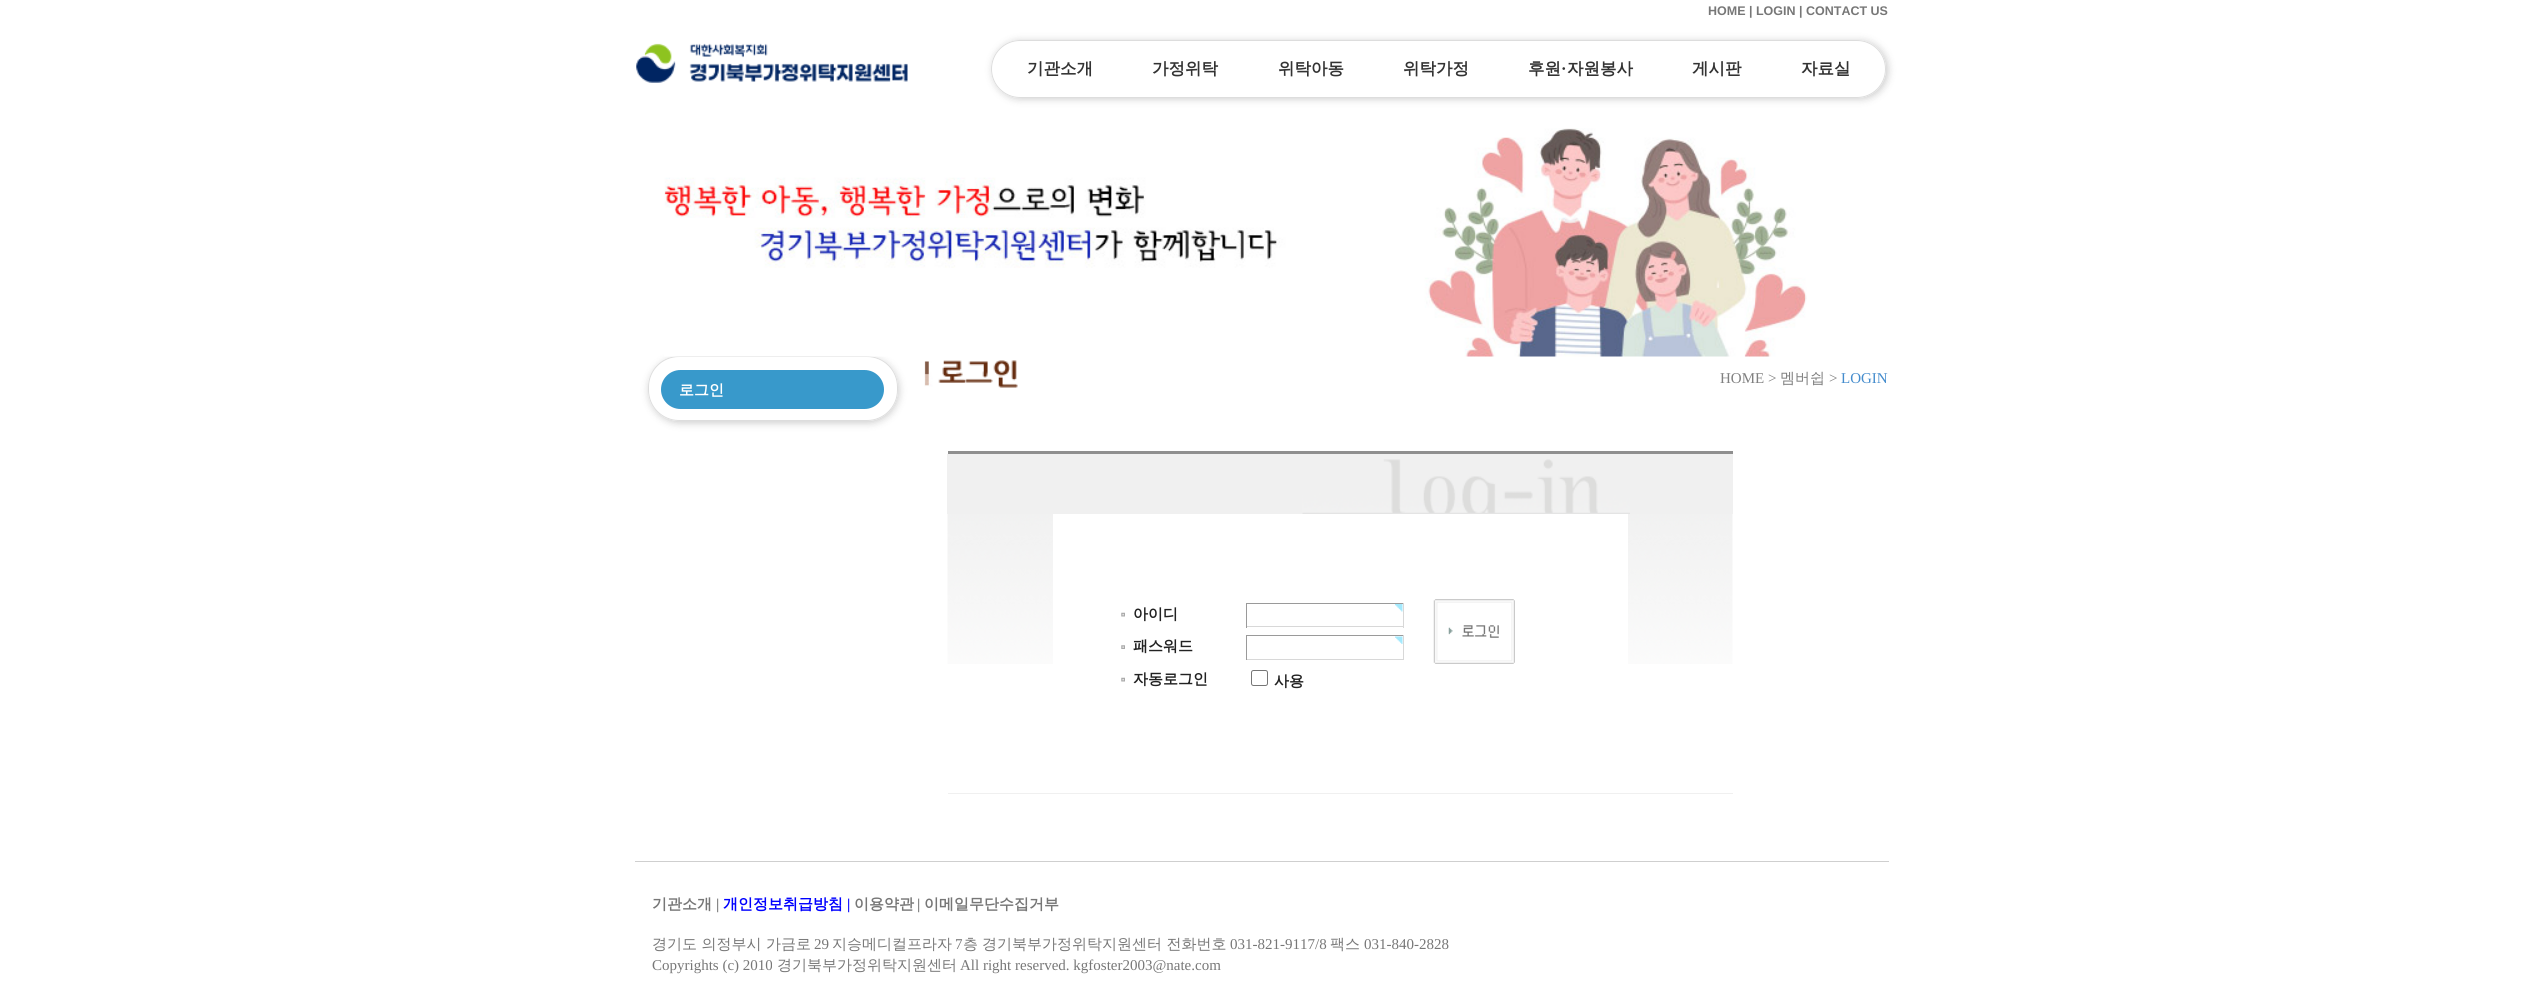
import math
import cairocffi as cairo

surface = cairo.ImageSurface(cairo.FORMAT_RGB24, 2522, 981)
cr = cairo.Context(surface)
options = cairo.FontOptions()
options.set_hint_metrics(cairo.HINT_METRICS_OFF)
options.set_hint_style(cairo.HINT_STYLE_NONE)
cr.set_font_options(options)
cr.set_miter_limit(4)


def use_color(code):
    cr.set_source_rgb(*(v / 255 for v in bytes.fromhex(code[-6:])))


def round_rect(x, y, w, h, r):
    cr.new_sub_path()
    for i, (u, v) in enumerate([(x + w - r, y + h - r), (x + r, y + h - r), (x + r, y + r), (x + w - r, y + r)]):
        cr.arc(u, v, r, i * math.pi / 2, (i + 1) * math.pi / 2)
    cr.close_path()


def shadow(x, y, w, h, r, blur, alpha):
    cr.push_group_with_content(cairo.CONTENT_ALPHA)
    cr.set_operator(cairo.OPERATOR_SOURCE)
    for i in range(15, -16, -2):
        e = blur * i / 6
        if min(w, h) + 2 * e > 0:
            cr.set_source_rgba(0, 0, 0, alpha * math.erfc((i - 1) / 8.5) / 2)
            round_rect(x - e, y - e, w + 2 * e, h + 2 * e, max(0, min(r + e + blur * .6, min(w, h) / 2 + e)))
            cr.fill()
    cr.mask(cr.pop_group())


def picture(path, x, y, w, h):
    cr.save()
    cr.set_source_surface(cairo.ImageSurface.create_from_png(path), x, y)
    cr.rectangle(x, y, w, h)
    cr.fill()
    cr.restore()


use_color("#ffffff")
cr.paint()
cr.select_font_face("Liberation Sans", cairo.FONT_SLANT_NORMAL, cairo.FONT_WEIGHT_BOLD)
cr.set_font_size(12.5)
use_color("#777777")
cr.move_to(1708, 15)
cr.show_text("HOME | LOGIN | CONTACT US")
picture("img1.png", 636, 43, 272, 40)
cr.save()
cr.set_fill_rule(cairo.FILL_RULE_EVEN_ODD)
cr.new_path()
cr.move_to(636, 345)
cr.line_to(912, 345)
cr.line_to(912, 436)
cr.line_to(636, 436)
cr.close_path()
cr.move_to(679, 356)
cr.line_to(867, 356)
cr.curve_to(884, 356, 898, 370, 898, 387)
cr.line_to(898, 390)
cr.curve_to(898, 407, 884, 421, 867, 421)
cr.line_to(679, 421)
cr.curve_to(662, 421, 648, 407, 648, 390)
cr.line_to(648, 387)
cr.curve_to(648, 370, 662, 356, 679, 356)
cr.close_path()
cr.clip()
use_color("#000000")
shadow(649, 358, 250, 65, 31, 4, 0.2)
cr.restore()
round_rect(648.5, 356.5, 249, 64, 30.5)
use_color("#dddddd")
cr.set_line_width(1)
cr.stroke()
picture("img2.png", 664, 128, 1143, 229)
use_color("#3899cb")
round_rect(661, 370, 223, 39, 19.5)
cr.fill()
cr.select_font_face("WenQuanYi Zen Hei", cairo.FONT_SLANT_NORMAL, cairo.FONT_WEIGHT_BOLD)
cr.set_font_size(15)
use_color("#ffffff")
cr.move_to(679, 395)
cr.show_text("로그인")
picture("img3.png", 924, 360, 94, 28)
cr.select_font_face("Liberation Serif")
use_color("#808080")
cr.move_to(1720, 383)
cr.show_text("HOME >")
cr.select_font_face("WenQuanYi Zen Hei Medium")
cr.move_to(1780, 383)
cr.show_text("멤버쉽")
cr.select_font_face("Liberation Serif")
cr.move_to(1829, 383)
cr.show_text(">")
use_color("#448ccd")
cr.move_to(1841, 383)
cr.show_text("LOGIN")
use_color("#8f8f8f")
cr.rectangle(948, 451, 785, 3)
cr.fill()
use_color("#f0f0f0")
cr.rectangle(947, 454, 786, 60)
cr.fill()
picture("img4.png", 1302, 459, 328, 55)
picture("img5.png", 947, 514, 786, 150)
use_color("#ffffff")
cr.rectangle(1053, 514, 575, 150)
cr.fill()
picture("img6.png", 1121, 612, 4, 5)
cr.select_font_face("WenQuanYi Zen Hei", cairo.FONT_SLANT_NORMAL, cairo.FONT_WEIGHT_BOLD)
use_color("#222222")
cr.move_to(1133, 619)
cr.show_text("아이디")
picture("img7.png", 1395, 604, 8, 8)
use_color("#9a9a9a")
cr.rectangle(1246, 603, 158, 1)
cr.fill()
use_color("#d8d8d8")
cr.rectangle(1403, 603, 1, 25)
cr.fill()
cr.rectangle(1246, 626, 158, 1)
cr.fill()
use_color("#9a9a9a")
cr.rectangle(1246, 603, 1, 25)
cr.fill()
picture("img8.png", 1121, 645, 4, 4)
use_color("#222222")
cr.move_to(1133, 651)
cr.show_text("패스워드")
picture("img9.png", 1395, 636, 8, 8)
use_color("#9a9a9a")
cr.rectangle(1246, 635, 158, 1)
cr.fill()
use_color("#d8d8d8")
cr.rectangle(1403, 635, 1, 25)
cr.fill()
cr.rectangle(1246, 659, 158, 1)
cr.fill()
use_color("#9a9a9a")
cr.rectangle(1246, 635, 1, 25)
cr.fill()
picture("img6.png", 1121, 677, 4, 5)
use_color("#222222")
cr.move_to(1133, 684)
cr.show_text("자동로그인")
round_rect(1251.5, 670.5, 16, 15, 2)
use_color("#767676")
cr.stroke()
use_color("#222222")
cr.move_to(1274, 686)
cr.show_text("사용")
picture("img10.png", 1433, 599, 82, 65)
use_color("#f0f0f0")
cr.rectangle(948, 793, 785, 1)
cr.fill()
use_color("#cfcfcf")
cr.rectangle(635, 861, 1254, 1)
cr.fill()
use_color("#777777")
cr.move_to(652, 909)
cr.show_text("기관소개")
cr.select_font_face("Liberation Serif", cairo.FONT_SLANT_NORMAL, cairo.FONT_WEIGHT_BOLD)
cr.move_to(716, 909)
cr.show_text("|")
cr.select_font_face("WenQuanYi Zen Hei", cairo.FONT_SLANT_NORMAL, cairo.FONT_WEIGHT_BOLD)
use_color("#0000ff")
cr.move_to(723, 909)
cr.show_text("개인정보취급방침")
cr.select_font_face("Liberation Serif", cairo.FONT_SLANT_NORMAL, cairo.FONT_WEIGHT_BOLD)
cr.move_to(847, 909)
cr.show_text("|")
cr.select_font_face("WenQuanYi Zen Hei", cairo.FONT_SLANT_NORMAL, cairo.FONT_WEIGHT_BOLD)
use_color("#777777")
cr.move_to(854, 909)
cr.show_text("이용약관")
cr.select_font_face("Liberation Serif", cairo.FONT_SLANT_NORMAL, cairo.FONT_WEIGHT_BOLD)
cr.move_to(917, 909)
cr.show_text("|")
cr.select_font_face("WenQuanYi Zen Hei", cairo.FONT_SLANT_NORMAL, cairo.FONT_WEIGHT_BOLD)
cr.move_to(924, 909)
cr.show_text("이메일무단수집거부")
cr.select_font_face("WenQuanYi Zen Hei Medium")
cr.move_to(652, 949)
cr.show_text("경기도 의정부시 가금로")
cr.select_font_face("Liberation Serif")
cr.move_to(814, 949)
cr.show_text("29")
cr.select_font_face("WenQuanYi Zen Hei Medium")
cr.move_to(832, 949)
cr.show_text("지승메디컬프라자")
cr.select_font_face("Liberation Serif")
cr.move_to(955, 949)
cr.show_text("7")
cr.select_font_face("WenQuanYi Zen Hei Medium")
cr.move_to(963, 949)
cr.show_text("층")
cr.move_to(982, 949)
cr.show_text("경기북부가정위탁지원센터 전화번호")
cr.select_font_face("Liberation Serif")
cr.move_to(1230, 949)
cr.show_text("031-821-9117/8")
cr.select_font_face("WenQuanYi Zen Hei Medium")
cr.move_to(1330, 949)
cr.show_text("팩스")
cr.select_font_face("Liberation Serif")
cr.move_to(1364, 949)
cr.show_text("031-840-2828")
cr.move_to(652, 970)
cr.show_text("Copyrights (c) 2010")
cr.select_font_face("WenQuanYi Zen Hei Medium")
cr.move_to(777, 970)
cr.show_text("경기북부가정위탁지원센터")
cr.select_font_face("Liberation Serif")
cr.move_to(960, 970)
cr.show_text("All right reserved. kgfoster2003@nate.com")
cr.save()
cr.set_fill_rule(cairo.FILL_RULE_EVEN_ODD)
cr.new_path()
cr.move_to(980, 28)
cr.line_to(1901, 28)
cr.line_to(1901, 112)
cr.line_to(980, 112)
cr.close_path()
cr.move_to(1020, 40)
cr.line_to(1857, 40)
cr.curve_to(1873, 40, 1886, 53, 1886, 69)
cr.curve_to(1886, 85, 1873, 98, 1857, 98)
cr.line_to(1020, 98)
cr.curve_to(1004, 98, 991, 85, 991, 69)
cr.curve_to(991, 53, 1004, 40, 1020, 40)
cr.close_path()
cr.clip()
use_color("#000000")
shadow(993, 41, 895, 58, 29, 4, 0.2)
cr.restore()
round_rect(991.5, 40.5, 894, 57, 28.5)
use_color("#dddddd")
cr.stroke()
cr.select_font_face("WenQuanYi Zen Hei", cairo.FONT_SLANT_NORMAL, cairo.FONT_WEIGHT_BOLD)
cr.set_font_size(16.5)
use_color("#333333")
cr.move_to(1027, 74)
cr.show_text("기관소개")
cr.move_to(1152, 74)
cr.show_text("가정위탁")
cr.move_to(1278, 74)
cr.show_text("위탁아동")
cr.move_to(1403, 74)
cr.show_text("위탁가정")
cr.move_to(1528, 74)
cr.show_text("후원")
cr.select_font_face("Liberation Serif", cairo.FONT_SLANT_NORMAL, cairo.FONT_WEIGHT_BOLD)
cr.move_to(1561, 74)
cr.show_text("·")
cr.select_font_face("WenQuanYi Zen Hei", cairo.FONT_SLANT_NORMAL, cairo.FONT_WEIGHT_BOLD)
cr.move_to(1567, 74)
cr.show_text("자원봉사")
cr.move_to(1692, 74)
cr.show_text("게시판")
cr.move_to(1801, 74)
cr.show_text("자료실")
surface.write_to_png("result.png")
